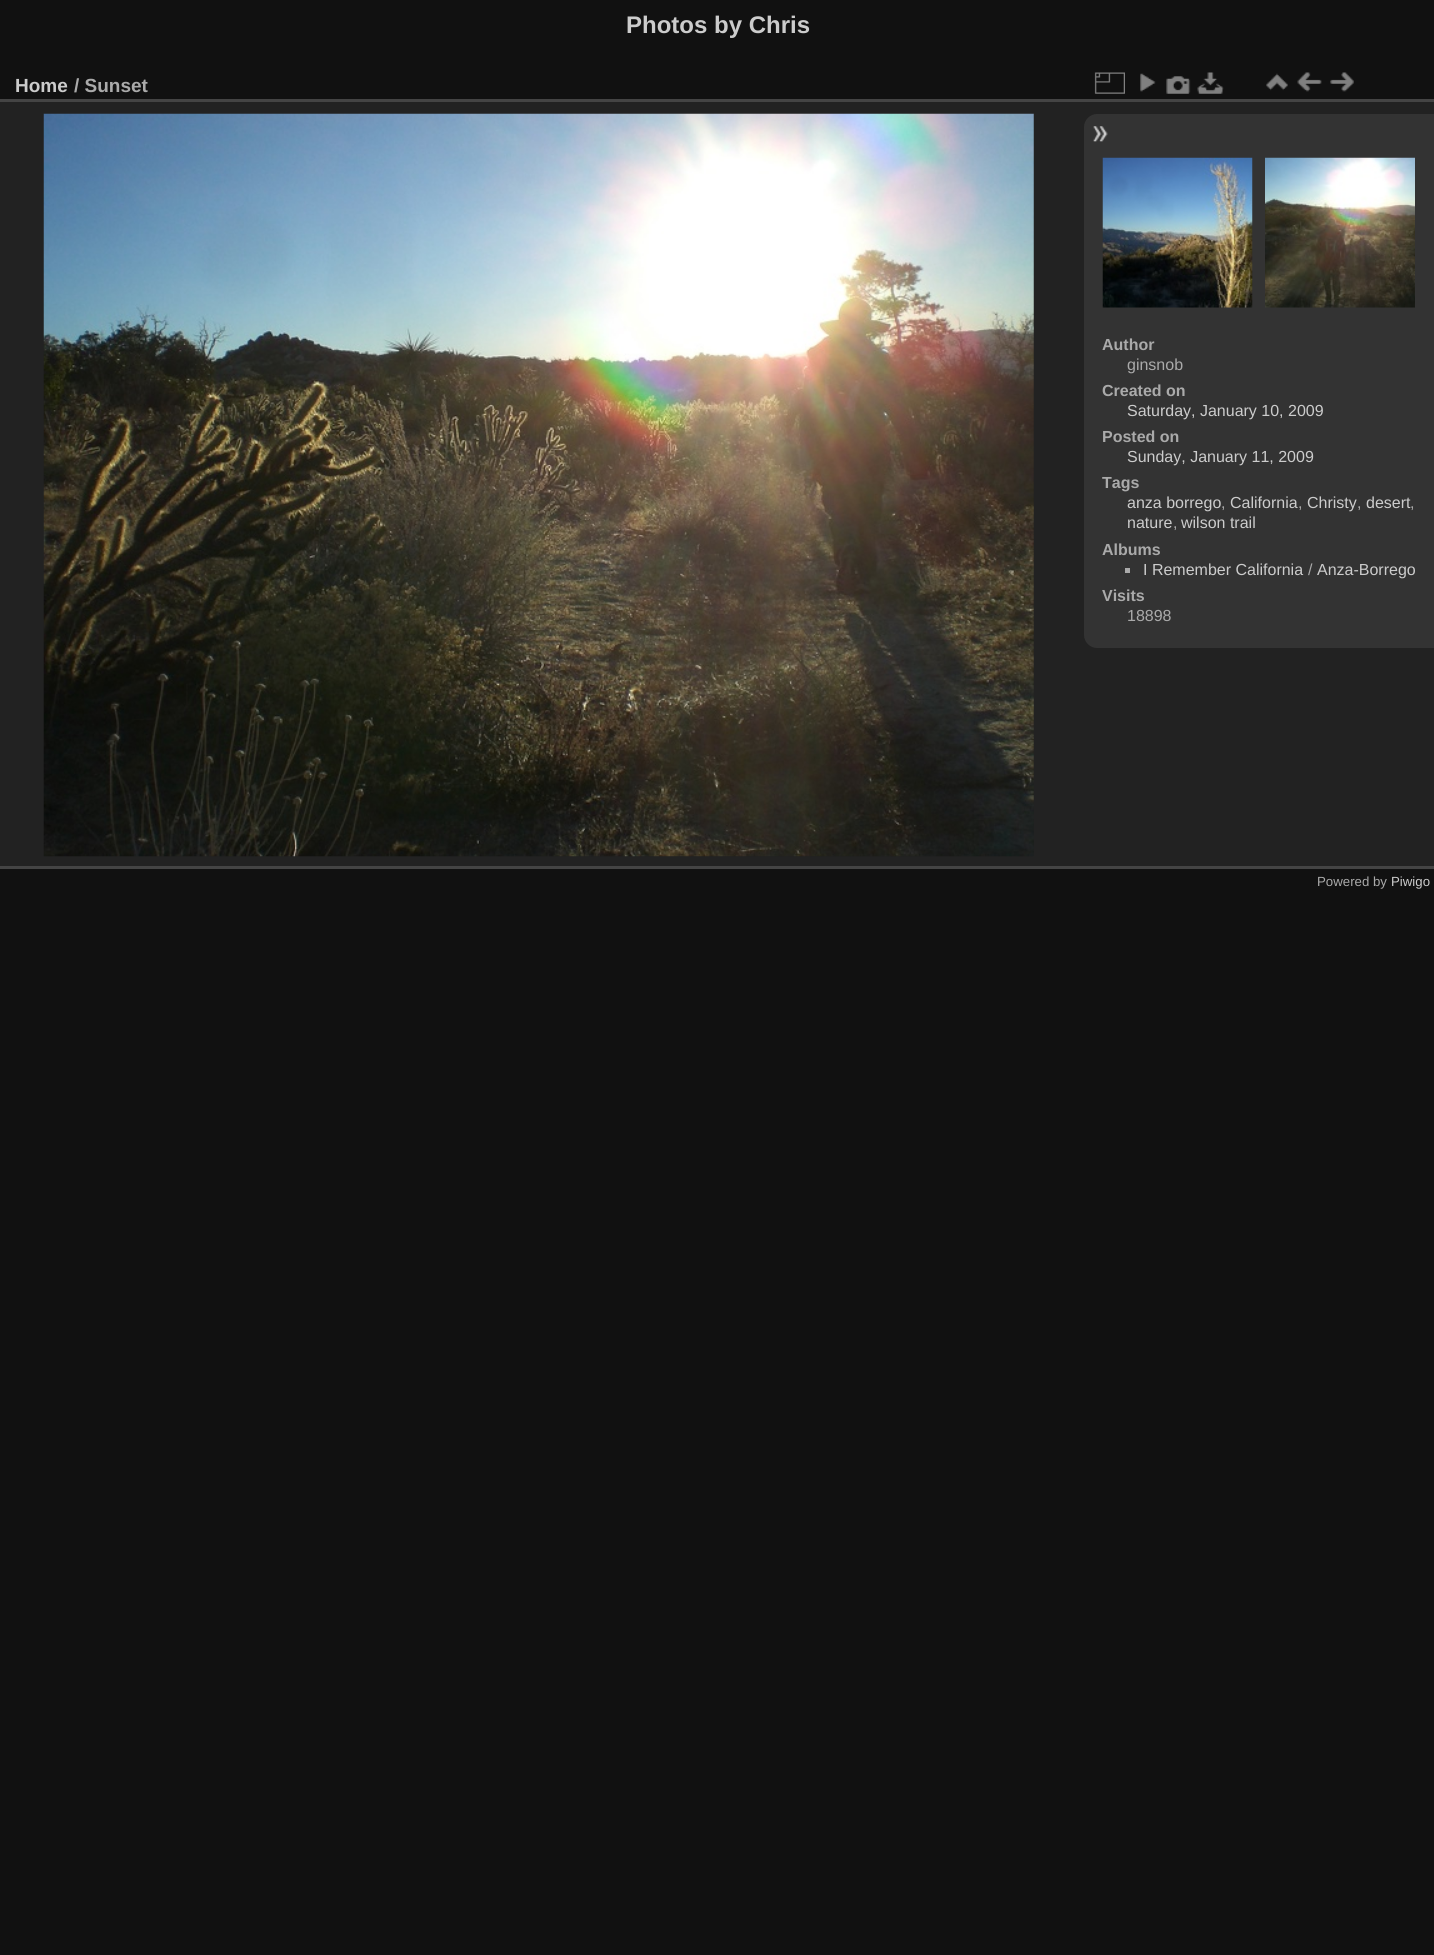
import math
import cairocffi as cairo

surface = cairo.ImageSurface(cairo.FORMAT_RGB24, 1434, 1955)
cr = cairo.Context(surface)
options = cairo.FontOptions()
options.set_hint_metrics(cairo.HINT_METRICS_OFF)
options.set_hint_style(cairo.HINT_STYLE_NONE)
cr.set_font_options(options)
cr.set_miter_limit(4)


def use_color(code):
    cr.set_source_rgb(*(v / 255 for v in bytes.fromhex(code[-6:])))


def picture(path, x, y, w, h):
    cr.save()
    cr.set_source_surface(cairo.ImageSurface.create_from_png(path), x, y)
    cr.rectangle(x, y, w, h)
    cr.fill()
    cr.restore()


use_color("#111111")
cr.paint()
cr.select_font_face("Liberation Sans", cairo.FONT_SLANT_NORMAL, cairo.FONT_WEIGHT_BOLD)
cr.set_font_size(24)
use_color("#cccccc")
cr.move_to(626, 33)
cr.show_text("Photos by Chris")
use_color("#222222")
cr.rectangle(0, 102, 1434, 764)
cr.fill()
use_color("#444444")
cr.rectangle(0, 866, 1434, 3)
cr.fill()
cr.rectangle(0, 99, 1434, 3)
cr.fill()
cr.set_font_size(19)
use_color("#cccccc")
cr.move_to(15, 92)
cr.show_text("Home")
use_color("#aaaaaa")
cr.move_to(74, 92)
cr.show_text("/ Sunset")
picture("img1.png", 1094, 72, 31, 22)
picture("img2.png", 1140, 73, 16, 19)
picture("img3.png", 1166, 76, 25, 18)
picture("img4.png", 1197, 72, 27, 22)
picture("img5.png", 1266, 73, 22, 18)
picture("img6.png", 1297, 72, 25, 20)
picture("img7.png", 1330, 72, 24, 20)
picture("img8.png", 43, 113, 991, 744)
use_color("#333333")
cr.new_path()
cr.move_to(1097, 114)
cr.line_to(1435, 114)
cr.line_to(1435, 648)
cr.line_to(1097, 648)
cr.curve_to(1090, 648, 1084, 642, 1084, 635)
cr.line_to(1084, 127)
cr.curve_to(1084, 120, 1090, 114, 1097, 114)
cr.close_path()
cr.fill()
picture("img9.png", 1093, 126, 15, 16)
picture("img10.png", 1102, 157, 151, 151)
picture("img11.png", 1265, 157, 150, 151)
cr.set_font_size(16)
use_color("#aaaaaa")
cr.move_to(1102, 350)
cr.show_text("Author")
cr.select_font_face("Liberation Sans")
cr.move_to(1127, 370)
cr.show_text("ginsnob")
cr.select_font_face("Liberation Sans", cairo.FONT_SLANT_NORMAL, cairo.FONT_WEIGHT_BOLD)
cr.move_to(1102, 396)
cr.show_text("Created on")
cr.select_font_face("Liberation Sans")
use_color("#cccccc")
cr.move_to(1127, 416)
cr.show_text("Saturday, January 10, 2009")
cr.select_font_face("Liberation Sans", cairo.FONT_SLANT_NORMAL, cairo.FONT_WEIGHT_BOLD)
use_color("#aaaaaa")
cr.move_to(1102, 442)
cr.show_text("Posted on")
cr.select_font_face("Liberation Sans")
use_color("#cccccc")
cr.move_to(1127, 462)
cr.show_text("Sunday, January 11, 2009")
cr.select_font_face("Liberation Sans", cairo.FONT_SLANT_NORMAL, cairo.FONT_WEIGHT_BOLD)
use_color("#aaaaaa")
cr.move_to(1102, 488)
cr.show_text("Tags")
cr.select_font_face("Liberation Sans")
use_color("#cccccc")
cr.move_to(1127, 508)
cr.show_text("anza borrego")
use_color("#aaaaaa")
cr.move_to(1221, 508)
cr.show_text(",")
use_color("#cccccc")
cr.move_to(1230, 508)
cr.show_text("California")
use_color("#aaaaaa")
cr.move_to(1298, 508)
cr.show_text(",")
use_color("#cccccc")
cr.move_to(1307, 508)
cr.show_text("Christy")
use_color("#aaaaaa")
cr.move_to(1357, 508)
cr.show_text(",")
use_color("#cccccc")
cr.move_to(1366, 508)
cr.show_text("desert")
use_color("#aaaaaa")
cr.move_to(1410, 508)
cr.show_text(",")
use_color("#cccccc")
cr.move_to(1127, 528)
cr.show_text("nature")
use_color("#aaaaaa")
cr.move_to(1173, 528)
cr.show_text(",")
use_color("#cccccc")
cr.move_to(1181, 528)
cr.show_text("wilson trail")
cr.select_font_face("Liberation Sans", cairo.FONT_SLANT_NORMAL, cairo.FONT_WEIGHT_BOLD)
use_color("#aaaaaa")
cr.move_to(1102, 555)
cr.show_text("Albums")
cr.rectangle(1125, 568, 5, 5)
cr.fill()
cr.select_font_face("Liberation Sans")
use_color("#cccccc")
cr.move_to(1143, 575)
cr.show_text("I Remember California")
use_color("#aaaaaa")
cr.move_to(1308, 575)
cr.show_text("/")
use_color("#cccccc")
cr.move_to(1317, 575)
cr.show_text("Anza-Borrego")
cr.select_font_face("Liberation Sans", cairo.FONT_SLANT_NORMAL, cairo.FONT_WEIGHT_BOLD)
use_color("#aaaaaa")
cr.move_to(1102, 601)
cr.show_text("Visits")
cr.select_font_face("Liberation Sans")
cr.move_to(1127, 621)
cr.show_text("18898")
cr.set_font_size(13.25)
cr.move_to(1317, 886)
cr.show_text("Powered by")
use_color("#cccccc")
cr.move_to(1391, 886)
cr.show_text("Piwigo")
surface.write_to_png("result.png")
